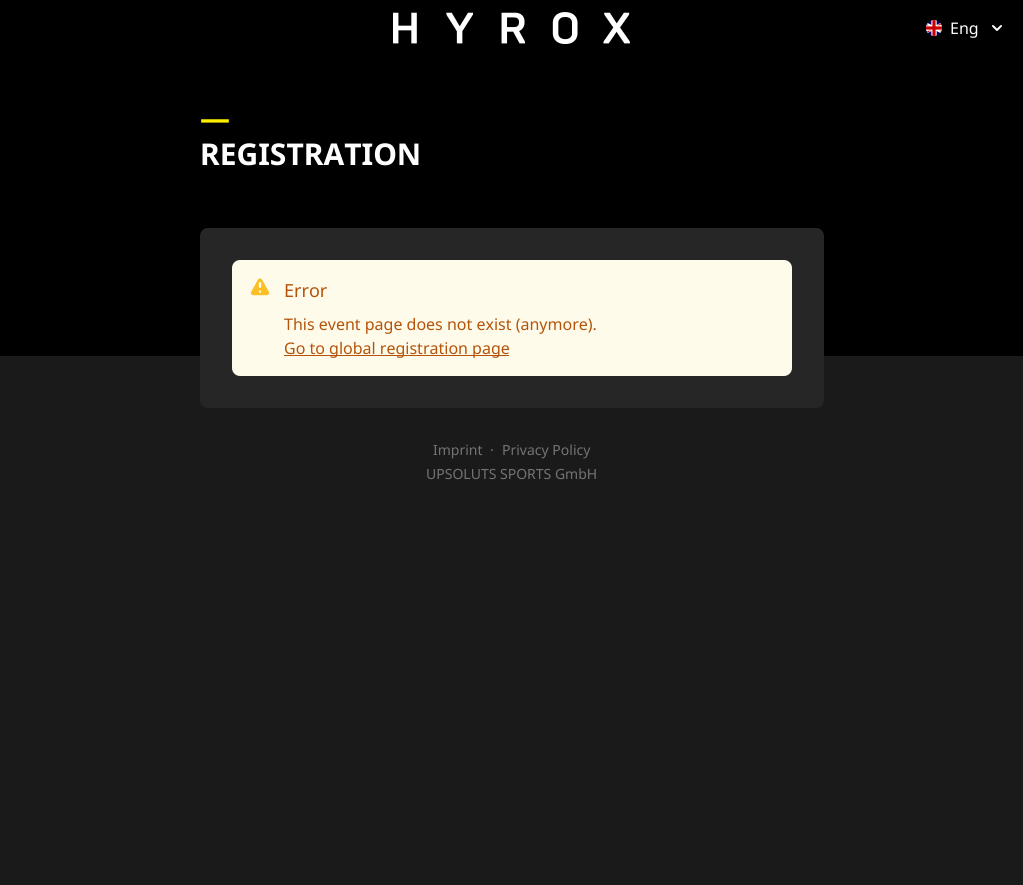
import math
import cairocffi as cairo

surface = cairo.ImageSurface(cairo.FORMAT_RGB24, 1023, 885)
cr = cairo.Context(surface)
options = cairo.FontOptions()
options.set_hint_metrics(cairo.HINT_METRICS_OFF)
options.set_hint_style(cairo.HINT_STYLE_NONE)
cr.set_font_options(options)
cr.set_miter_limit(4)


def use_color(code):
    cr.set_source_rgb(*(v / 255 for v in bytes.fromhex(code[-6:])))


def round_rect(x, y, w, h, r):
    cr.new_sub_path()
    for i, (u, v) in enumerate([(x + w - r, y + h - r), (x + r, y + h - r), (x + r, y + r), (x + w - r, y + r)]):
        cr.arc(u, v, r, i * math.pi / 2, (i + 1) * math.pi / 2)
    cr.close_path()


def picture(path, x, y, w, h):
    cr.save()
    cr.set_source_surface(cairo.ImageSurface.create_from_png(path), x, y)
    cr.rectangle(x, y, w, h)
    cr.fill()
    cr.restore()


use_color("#1a1a1a")
cr.paint()
use_color("#000000")
cr.rectangle(0, 0, 1023, 356)
cr.fill()
picture("img1.png", 393, 12, 237, 32)
picture("img2.png", 926, 20, 16, 16)
cr.select_font_face("Noto Sans")
cr.set_font_size(16)
use_color("#ffffff")
cr.move_to(950, 34)
cr.show_text("Eng")
picture("img3.png", 992, 25, 10, 6)
cr.select_font_face("Noto Sans", cairo.FONT_SLANT_NORMAL, cairo.FONT_WEIGHT_BOLD)
cr.set_font_size(30)
use_color("#ffed00")
cr.move_to(200, 129)
cr.show_text("—")
use_color("#ffffff")
cr.move_to(200, 165)
cr.show_text("REGISTRATION")
use_color("#262626")
round_rect(200, 228, 624, 180, 8)
cr.fill()
use_color("#fffbeb")
round_rect(232, 260, 560, 116, 8)
cr.fill()
picture("img4.png", 250, 278, 20, 18)
cr.select_font_face("Noto Sans")
cr.set_font_size(18)
use_color("#b45309")
cr.move_to(284, 297)
cr.show_text("Error")
cr.set_font_size(16)
cr.move_to(284, 330)
cr.show_text("This event page does not exist (anymore).")
cr.rectangle(284, 355, 225, 1)
cr.fill()
cr.move_to(284, 354)
cr.show_text("Go to global registration page")
cr.set_font_size(14)
use_color("#737373")
cr.move_to(433, 455)
cr.show_text("Imprint")
cr.move_to(490, 455)
cr.show_text("·")
cr.move_to(502, 455)
cr.show_text("Privacy Policy")
cr.move_to(426, 479)
cr.show_text("UPSOLUTS SPORTS GmbH")
surface.write_to_png("result.png")
